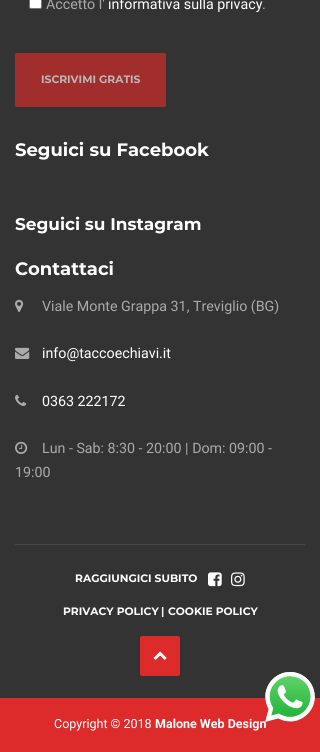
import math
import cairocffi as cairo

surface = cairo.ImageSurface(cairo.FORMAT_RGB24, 320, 752)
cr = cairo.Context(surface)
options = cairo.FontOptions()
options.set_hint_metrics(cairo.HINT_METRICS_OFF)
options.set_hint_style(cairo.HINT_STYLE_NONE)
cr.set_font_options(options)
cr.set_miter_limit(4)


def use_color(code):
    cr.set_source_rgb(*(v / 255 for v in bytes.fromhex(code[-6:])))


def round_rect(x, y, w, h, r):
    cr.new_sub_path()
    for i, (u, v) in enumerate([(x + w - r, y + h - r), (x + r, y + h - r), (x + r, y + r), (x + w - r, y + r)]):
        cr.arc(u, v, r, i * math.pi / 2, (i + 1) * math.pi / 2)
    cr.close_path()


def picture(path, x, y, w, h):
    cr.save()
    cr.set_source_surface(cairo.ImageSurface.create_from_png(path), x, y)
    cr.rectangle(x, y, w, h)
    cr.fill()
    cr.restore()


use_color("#333333")
cr.paint()
use_color("#ffffff")
round_rect(29.5, -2.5, 12, 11, 1.5)
cr.fill_preserve()
use_color("#767676")
cr.set_line_width(1)
cr.stroke()
cr.select_font_face("Roboto")
cr.set_font_size(14.25)
use_color("#aaaaaa")
cr.move_to(46, 9)
cr.show_text("Accetto l'")
use_color("#ffffff")
cr.move_to(108, 9)
cr.show_text("informativa sulla privacy")
use_color("#aaaaaa")
cr.move_to(262, 9)
cr.show_text(".")
use_color("#a22d2d")
round_rect(16, 54, 149, 52, 1)
cr.fill_preserve()
cr.set_line_width(2)
cr.stroke()
cr.select_font_face("Montserrat Thin")
cr.set_font_size(10.75)
use_color("#b8b8b8")
cr.move_to(41, 83)
cr.show_text("ISCRIVIMI GRATIS")
cr.set_font_size(18)
use_color("#ffffff")
cr.move_to(15, 156)
cr.show_text("Seguici su Facebook")
cr.set_font_size(16.9)
cr.move_to(15, 230)
cr.show_text("Seguici su Instagram")
cr.set_font_size(18)
cr.move_to(15, 275)
cr.show_text("Contattaci")
picture("img1.png", 15, 299, 9, 13)
cr.select_font_face("Roboto")
cr.set_font_size(14.25)
use_color("#aaaaaa")
cr.move_to(42, 311)
cr.show_text("Viale Monte Grappa 31, Treviglio (BG)")
picture("img2.png", 15, 347, 15, 12)
use_color("#ffffff")
cr.move_to(42, 358)
cr.show_text("info@taccoechiavi.it")
picture("img3.png", 15, 394, 12, 12)
cr.move_to(42, 406)
cr.show_text("0363 222172")
picture("img4.png", 15, 441, 13, 13)
use_color("#aaaaaa")
cr.move_to(42, 453)
cr.show_text("Lun - Sab: 8:30 - 20:00 | Dom: 09:00 -")
cr.move_to(15, 477)
cr.show_text("19:00")
use_color("#474747")
cr.rectangle(15, 544, 290, 1)
cr.fill()
cr.select_font_face("Montserrat Thin")
cr.set_font_size(10.75)
use_color("#ffffff")
cr.move_to(75, 582)
cr.show_text("RAGGIUNGICI SUBITO")
picture("img5.png", 208, 572, 14, 15)
picture("img6.png", 231, 572, 14, 15)
cr.move_to(63, 615)
cr.show_text("PRIVACY POLICY")
use_color("#eeeeee")
cr.move_to(161, 615)
cr.show_text("|")
use_color("#ffffff")
cr.move_to(168, 615)
cr.show_text("COOKIE POLICY")
use_color("#dd2a2a")
round_rect(140, 636, 40, 40, 2)
cr.fill()
picture("img7.png", 153, 651, 14, 9)
cr.rectangle(0, 698, 320, 54)
cr.fill()
cr.select_font_face("Roboto")
cr.set_font_size(12.5)
use_color("#ffffff")
cr.move_to(54, 728)
cr.show_text("Copyright © 2018")
cr.select_font_face("Roboto", cairo.FONT_SLANT_NORMAL, cairo.FONT_WEIGHT_BOLD)
cr.move_to(155, 728)
cr.show_text("Malone Web Design")
picture("img8.png", 265, 672, 50, 50)
surface.write_to_png("result.png")
